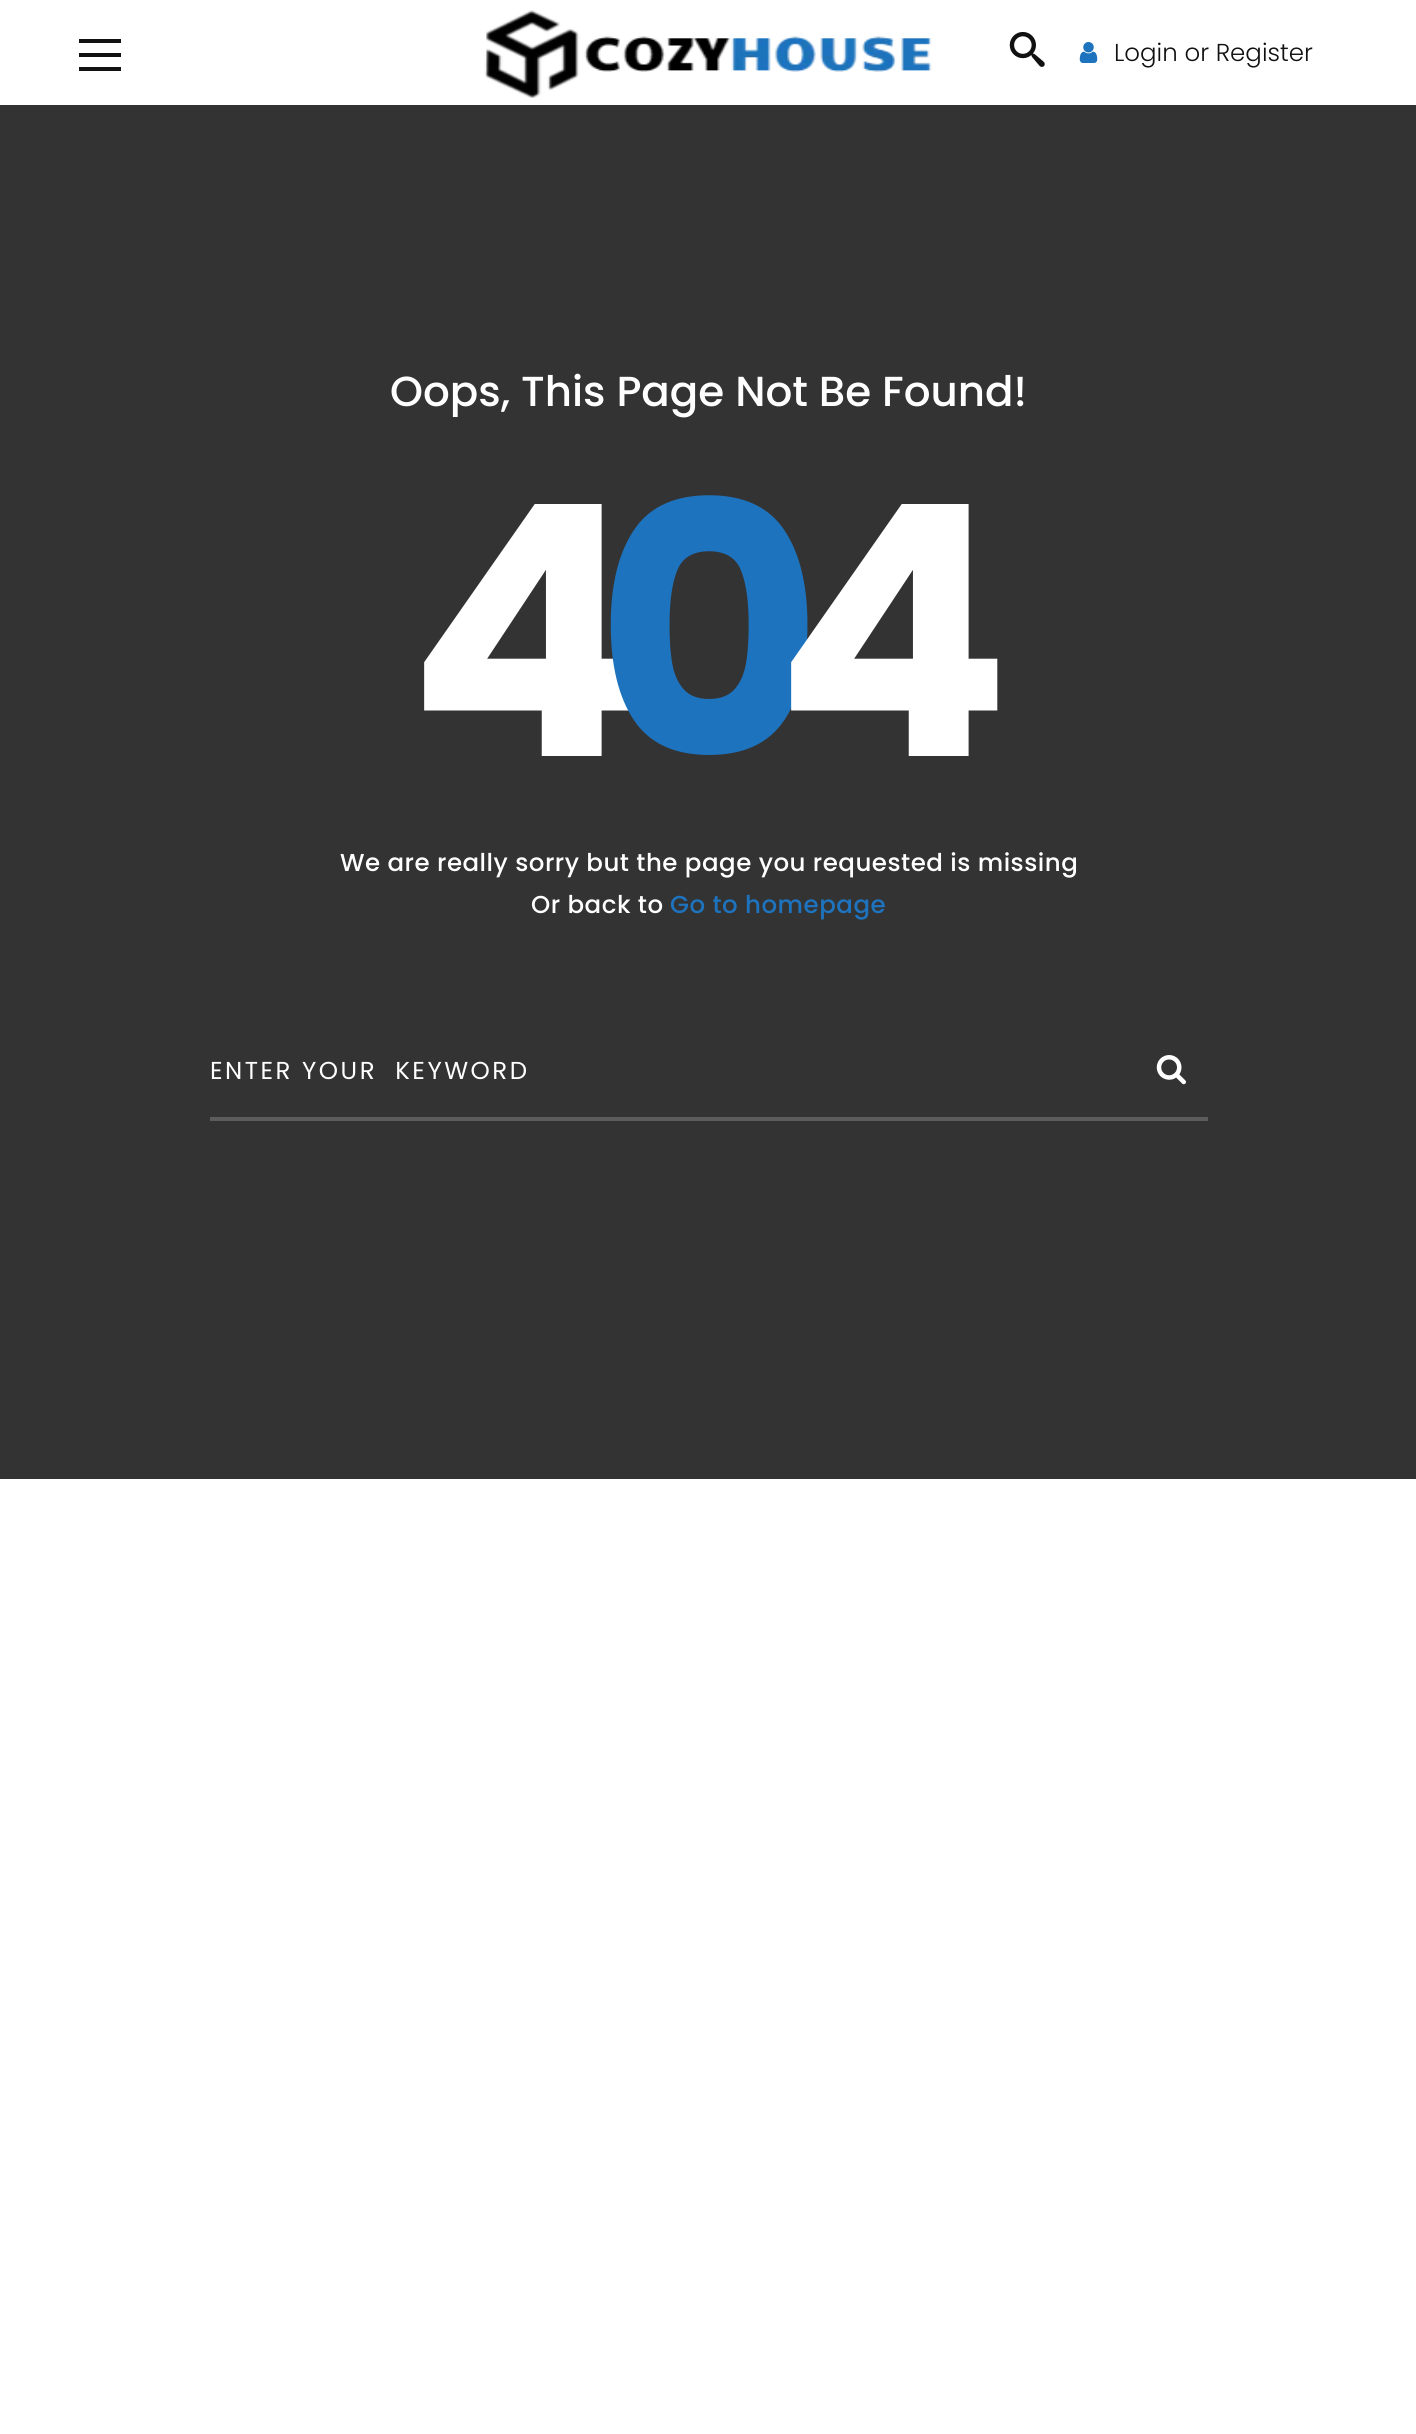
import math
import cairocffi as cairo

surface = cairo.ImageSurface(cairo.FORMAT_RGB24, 1416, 2434)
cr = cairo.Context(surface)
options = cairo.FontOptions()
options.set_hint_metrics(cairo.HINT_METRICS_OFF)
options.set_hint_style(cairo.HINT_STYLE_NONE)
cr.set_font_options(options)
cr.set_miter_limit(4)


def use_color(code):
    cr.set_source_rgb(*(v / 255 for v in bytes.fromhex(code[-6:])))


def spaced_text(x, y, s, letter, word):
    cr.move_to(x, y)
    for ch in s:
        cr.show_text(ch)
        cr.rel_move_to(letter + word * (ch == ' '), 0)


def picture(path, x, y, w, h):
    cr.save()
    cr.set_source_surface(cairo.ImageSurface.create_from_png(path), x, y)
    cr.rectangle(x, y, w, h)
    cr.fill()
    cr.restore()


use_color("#ffffff")
cr.paint()
use_color("#111111")
cr.rectangle(79, 39, 42, 4)
cr.fill()
cr.rectangle(79, 53, 42, 4)
cr.fill()
cr.rectangle(79, 67, 42, 4)
cr.fill()
picture("img1.png", 484, 10, 448, 88)
picture("img2.png", 1009, 31, 36, 36)
picture("img3.png", 1079, 42, 19, 21)
cr.select_font_face("Poppins Light")
cr.set_font_size(24.5)
cr.move_to(1114, 61)
cr.show_text("Login or Register")
use_color("#333333")
cr.rectangle(0, 105, 1416, 1374)
cr.fill()
cr.select_font_face("Poppins Medium")
cr.set_font_size(42)
use_color("#ffffff")
cr.move_to(390, 406)
cr.show_text("Oops, This Page Not Be Found!")
cr.select_font_face("Poppins", cairo.FONT_SLANT_NORMAL, cairo.FONT_WEIGHT_BOLD)
cr.set_font_size(350)
spaced_text(407, 756, "4", -49, 0)
use_color("#1e73be")
spaced_text(595, 756, "0", -49, 0)
use_color("#ffffff")
spaced_text(774, 756, "4", -49, 0)
cr.select_font_face("Poppins Medium")
cr.set_font_size(24.5)
spaced_text(340, 871, "We are really sorry but the page you requested is missing", 0.5, 0)
spaced_text(531, 913, "Or back to", 0.5, 0)
use_color("#1e73be")
spaced_text(670, 913, "Go to homepage", 0.5, 0)
use_color("#5c5c5c")
cr.rectangle(210, 1117, 998, 4)
cr.fill()
cr.select_font_face("Poppins")
use_color("#ffffff")
spaced_text(210, 1079, "ENTER YOUR  KEYWORD", 2.5, 0)
picture("img4.png", 1156, 1055, 30, 30)
surface.write_to_png("result.png")
